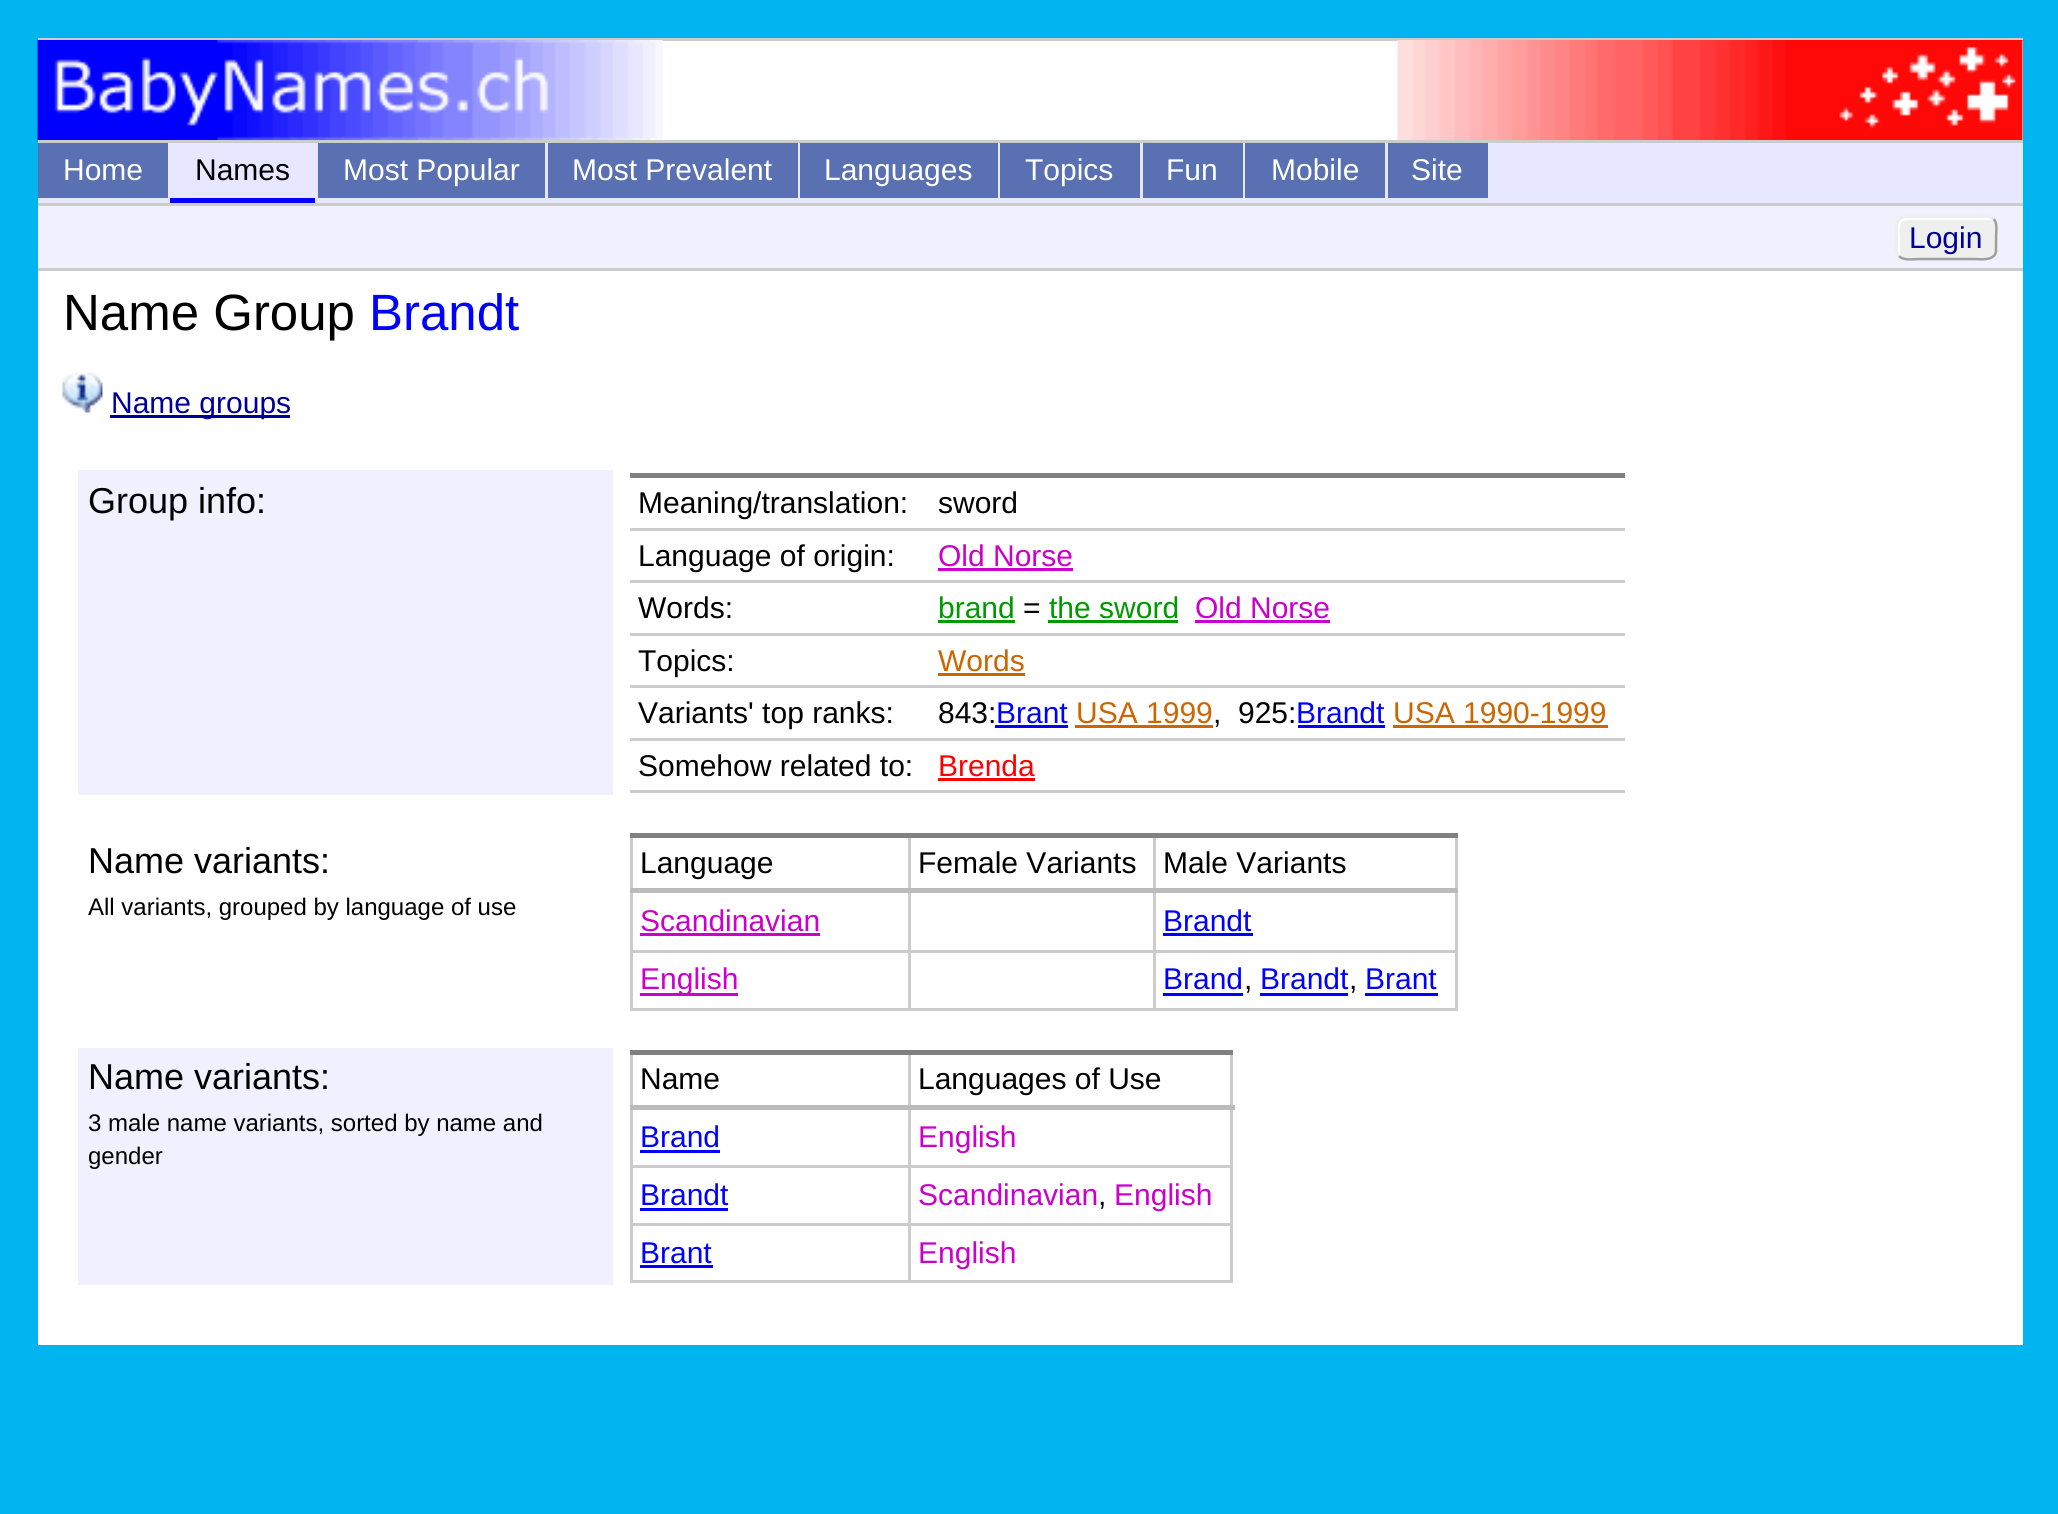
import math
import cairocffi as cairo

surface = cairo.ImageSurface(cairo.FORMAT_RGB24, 2058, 1514)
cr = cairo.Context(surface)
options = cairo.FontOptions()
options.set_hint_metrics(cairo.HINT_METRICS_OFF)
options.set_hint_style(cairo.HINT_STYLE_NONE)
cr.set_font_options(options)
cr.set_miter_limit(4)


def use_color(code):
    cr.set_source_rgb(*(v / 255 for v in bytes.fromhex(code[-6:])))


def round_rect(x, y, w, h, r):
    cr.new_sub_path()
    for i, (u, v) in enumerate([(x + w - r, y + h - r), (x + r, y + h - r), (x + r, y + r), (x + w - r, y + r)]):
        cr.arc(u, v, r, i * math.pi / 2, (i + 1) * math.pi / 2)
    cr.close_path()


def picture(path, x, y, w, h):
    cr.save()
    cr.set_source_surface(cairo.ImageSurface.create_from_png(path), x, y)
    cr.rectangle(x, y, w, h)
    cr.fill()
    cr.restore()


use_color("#00b5ef")
cr.paint()
use_color("#ffffff")
cr.rectangle(38, 41, 1985, 1304)
cr.fill()
use_color("#cccccc")
cr.rectangle(38, 38, 1985, 3)
cr.fill()
cr.rectangle(38, 140, 1985, 3)
cr.fill()
picture("img1.png", 37, 40, 626, 100)
picture("img2.png", 1397, 40, 626, 100)
use_color("#e7e7ff")
cr.rectangle(168, 143, 1855, 60)
cr.fill()
use_color("#cccccc")
cr.rectangle(38, 203, 1985, 3)
cr.fill()
use_color("#5970b2")
cr.rectangle(38, 143, 130, 55)
cr.fill()
use_color("#e7e7ff")
cr.rectangle(38, 198, 130, 5)
cr.fill()
cr.select_font_face("Liberation Sans")
cr.set_font_size(30)
use_color("#ffffff")
cr.move_to(63, 180)
cr.show_text("Home")
use_color("#0000ff")
cr.rectangle(170, 198, 145, 5)
cr.fill()
use_color("#000000")
cr.move_to(195, 180)
cr.show_text("Names")
use_color("#5970b2")
cr.rectangle(318, 143, 227, 55)
cr.fill()
use_color("#ffffff")
cr.move_to(343, 180)
cr.show_text("Most Popular")
use_color("#5970b2")
cr.rectangle(548, 143, 250, 55)
cr.fill()
use_color("#ffffff")
cr.move_to(572, 180)
cr.show_text("Most Prevalent")
use_color("#5970b2")
cr.rectangle(800, 143, 198, 55)
cr.fill()
use_color("#ffffff")
cr.move_to(824, 180)
cr.show_text("Languages")
use_color("#5970b2")
cr.rectangle(1000, 143, 140, 55)
cr.fill()
use_color("#ffffff")
cr.move_to(1025, 180)
cr.show_text("Topics")
use_color("#5970b2")
cr.rectangle(1143, 143, 100, 55)
cr.fill()
use_color("#ffffff")
cr.move_to(1166, 180)
cr.show_text("Fun")
use_color("#5970b2")
cr.rectangle(1245, 143, 140, 55)
cr.fill()
use_color("#ffffff")
cr.move_to(1271, 180)
cr.show_text("Mobile")
use_color("#5970b2")
cr.rectangle(1388, 143, 100, 55)
cr.fill()
use_color("#ffffff")
cr.move_to(1411, 180)
cr.show_text("Site")
use_color("#f0f0ff")
cr.rectangle(38, 206, 1985, 62)
cr.fill()
use_color("#cccccc")
cr.rectangle(38, 268, 1985, 3)
cr.fill()
use_color("#efefef")
round_rect(1895, 215, 103, 45, 10)
cr.fill()
use_color("#ffffff")
cr.new_path()
cr.move_to(1908, 220)
cr.line_to(1990, 220)
cr.line_to(1993, 220)
cr.curve_to(1991, 219, 1989, 218, 1987, 218)
cr.line_to(1906, 218)
cr.curve_to(1902, 218, 1898, 222, 1898, 226)
cr.line_to(1898, 250)
cr.curve_to(1898, 252, 1899, 255, 1901, 256)
cr.curve_to(1899, 252, 1900, 244, 1900, 240)
cr.curve_to(1900, 233, 1897, 220, 1908, 220)
cr.close_path()
cr.fill()
cr.new_path()
cr.move_to(1993.5, 219)
cr.curve_to(1998, 223, 1996, 232, 1996, 237.5)
cr.line_to(1996, 251.5)
cr.curve_to(1994, 261.5, 1980, 259, 1974, 259)
cr.line_to(1919, 259)
cr.curve_to(1914, 259, 1903.5, 261, 1899, 256)
use_color("#9f9f9f")
cr.set_line_width(2.5)
cr.stroke()
cr.new_path()
cr.move_to(1899, 256)
cr.curve_to(1894.5, 252, 1896, 243, 1896, 237.5)
cr.line_to(1896.5, 223.5)
cr.curve_to(1898.5, 213.5, 1912.5, 216, 1919, 216)
cr.line_to(1974, 216)
cr.curve_to(1978.5, 216, 1989, 214, 1993.5, 219)
use_color("#efefef")
cr.stroke()
use_color("#000099")
cr.move_to(1909, 248)
cr.show_text("Login")
cr.set_font_size(51)
use_color("#000000")
cr.move_to(63, 330)
cr.show_text("Name Group")
use_color("#0000ff")
cr.move_to(369, 330)
cr.show_text("Brandt")
picture("img3.png", 62, 372, 41, 41)
use_color("#000099")
cr.rectangle(110, 415, 180, 3)
cr.fill()
cr.set_font_size(30)
cr.move_to(111, 413)
cr.show_text("Name groups")
use_color("#f0f0ff")
cr.rectangle(78, 470, 535, 325)
cr.fill()
cr.set_font_size(36)
use_color("#000000")
cr.move_to(88, 513)
cr.show_text("Group info:")
use_color("#808080")
cr.rectangle(630, 473, 995, 5)
cr.fill()
cr.set_font_size(30)
use_color("#000000")
cr.move_to(638, 513)
cr.show_text("Meaning/translation:")
cr.move_to(938, 513)
cr.show_text("sword")
cr.move_to(638, 566)
cr.show_text("Language of origin:")
use_color("#cccccc")
cr.rectangle(630, 528, 995, 3)
cr.fill()
use_color("#cc00cc")
cr.move_to(938, 566)
cr.show_text("Old Norse")
cr.rectangle(938, 568, 135, 3)
cr.fill()
use_color("#000000")
cr.move_to(638, 618)
cr.show_text("Words:")
use_color("#cccccc")
cr.rectangle(630, 580, 995, 3)
cr.fill()
use_color("#009900")
cr.move_to(938, 618)
cr.show_text("brand")
cr.rectangle(938, 620, 77, 3)
cr.fill()
use_color("#000000")
cr.move_to(1023, 618)
cr.show_text("=")
use_color("#009900")
cr.move_to(1049, 618)
cr.show_text("the sword")
cr.rectangle(1048, 620, 130, 3)
cr.fill()
use_color("#cc00cc")
cr.move_to(1195, 618)
cr.show_text("Old Norse")
cr.rectangle(1195, 620, 135, 3)
cr.fill()
use_color("#000000")
cr.move_to(638, 671)
cr.show_text("Topics:")
use_color("#cccccc")
cr.rectangle(630, 633, 995, 3)
cr.fill()
use_color("#cc6600")
cr.move_to(938, 671)
cr.show_text("Words")
cr.rectangle(938, 673, 87, 3)
cr.fill()
use_color("#000000")
cr.move_to(638, 723)
cr.show_text("Variants' top ranks:")
use_color("#cccccc")
cr.rectangle(630, 685, 995, 3)
cr.fill()
use_color("#000000")
cr.move_to(938, 723)
cr.show_text("843:")
use_color("#0000ff")
cr.move_to(996, 723)
cr.show_text("Brant")
cr.rectangle(995, 725, 73, 3)
cr.fill()
use_color("#cc6600")
cr.move_to(1076, 723)
cr.show_text("USA 1999")
cr.rectangle(1075, 725, 138, 3)
cr.fill()
use_color("#000000")
cr.move_to(1213, 723)
cr.show_text(",  925:")
use_color("#0000ff")
cr.move_to(1296, 723)
cr.show_text("Brandt")
cr.rectangle(1298, 725, 87, 3)
cr.fill()
use_color("#cc6600")
cr.move_to(1393, 723)
cr.show_text("USA 1990-1999")
cr.rectangle(1393, 725, 215, 3)
cr.fill()
use_color("#000000")
cr.move_to(638, 776)
cr.show_text("Somehow related to:")
use_color("#cccccc")
cr.rectangle(630, 738, 995, 3)
cr.fill()
cr.rectangle(630, 790, 995, 3)
cr.fill()
use_color("#ff0000")
cr.move_to(938, 776)
cr.show_text("Brenda")
cr.rectangle(938, 778, 97, 3)
cr.fill()
cr.set_font_size(36)
use_color("#000000")
cr.move_to(88, 873)
cr.show_text("Name variants:")
cr.set_font_size(24)
cr.move_to(88, 915)
cr.show_text("All variants, grouped by language of use")
use_color("#cccccc")
cr.rectangle(1455, 833, 3, 177)
cr.fill()
cr.rectangle(630, 1008, 828, 3)
cr.fill()
cr.rectangle(630, 833, 3, 177)
cr.fill()
cr.rectangle(1153, 950, 305, 3)
cr.fill()
cr.rectangle(1153, 950, 3, 60)
cr.fill()
cr.rectangle(908, 950, 247, 3)
cr.fill()
cr.rectangle(908, 950, 3, 60)
cr.fill()
cr.rectangle(630, 950, 280, 3)
cr.fill()
cr.rectangle(908, 835, 3, 118)
cr.fill()
cr.rectangle(1153, 835, 3, 118)
cr.fill()
use_color("#808080")
cr.rectangle(630, 833, 828, 5)
cr.fill()
cr.set_font_size(30)
use_color("#000000")
cr.move_to(640, 873)
cr.show_text("Language")
cr.move_to(918, 873)
cr.show_text("Female Variants")
use_color("#bbbbbb")
cr.rectangle(630, 888, 828, 5)
cr.fill()
use_color("#000000")
cr.move_to(1163, 873)
cr.show_text("Male Variants")
use_color("#cc00cc")
cr.move_to(640, 931)
cr.show_text("Scandinavian")
cr.rectangle(640, 933, 180, 3)
cr.fill()
use_color("#0000ff")
cr.move_to(1163, 931)
cr.show_text("Brandt")
cr.rectangle(1163, 933, 90, 3)
cr.fill()
use_color("#cc00cc")
cr.rectangle(640, 993, 98, 3)
cr.fill()
cr.move_to(640, 989)
cr.show_text("English")
use_color("#0000ff")
cr.move_to(1163, 989)
cr.show_text("Brand")
cr.rectangle(1163, 993, 80, 3)
cr.fill()
use_color("#000000")
cr.move_to(1244, 989)
cr.show_text(",")
use_color("#0000ff")
cr.move_to(1260, 989)
cr.show_text("Brandt")
cr.rectangle(1260, 993, 88, 3)
cr.fill()
use_color("#000000")
cr.move_to(1349, 989)
cr.show_text(",")
use_color("#0000ff")
cr.move_to(1365, 989)
cr.show_text("Brant")
cr.rectangle(1365, 993, 73, 3)
cr.fill()
use_color("#f0f0ff")
cr.rectangle(78, 1048, 535, 237)
cr.fill()
cr.set_font_size(36)
use_color("#000000")
cr.move_to(88, 1089)
cr.show_text("Name variants:")
cr.set_font_size(24)
cr.move_to(88, 1131)
cr.show_text("3 male name variants, sorted by name and")
cr.move_to(88, 1164)
cr.show_text("gender")
use_color("#cccccc")
cr.rectangle(1230, 1050, 3, 233)
cr.fill()
cr.rectangle(630, 1280, 603, 3)
cr.fill()
cr.rectangle(630, 1050, 3, 233)
cr.fill()
cr.rectangle(908, 1165, 325, 3)
cr.fill()
cr.rectangle(908, 1223, 325, 3)
cr.fill()
cr.rectangle(908, 1223, 3, 60)
cr.fill()
cr.rectangle(630, 1223, 280, 3)
cr.fill()
cr.rectangle(908, 1165, 3, 60)
cr.fill()
cr.rectangle(630, 1165, 280, 3)
cr.fill()
cr.rectangle(908, 1050, 3, 118)
cr.fill()
use_color("#808080")
cr.rectangle(630, 1050, 603, 5)
cr.fill()
cr.set_font_size(30)
use_color("#000000")
cr.move_to(640, 1089)
cr.show_text("Name")
use_color("#bbbbbb")
cr.rectangle(630, 1105, 605, 5)
cr.fill()
use_color("#000000")
cr.move_to(918, 1089)
cr.show_text("Languages of Use")
use_color("#0000ff")
cr.move_to(640, 1147)
cr.show_text("Brand")
cr.rectangle(640, 1150, 80, 3)
cr.fill()
use_color("#cc00cc")
cr.move_to(918, 1147)
cr.show_text("English")
use_color("#0000ff")
cr.move_to(640, 1205)
cr.show_text("Brandt")
cr.rectangle(640, 1208, 88, 3)
cr.fill()
use_color("#cc00cc")
cr.move_to(918, 1205)
cr.show_text("Scandinavian")
use_color("#000000")
cr.move_to(1098, 1205)
cr.show_text(",")
use_color("#cc00cc")
cr.move_to(1114, 1205)
cr.show_text("English")
use_color("#0000ff")
cr.move_to(640, 1263)
cr.show_text("Brant")
cr.rectangle(640, 1265, 73, 3)
cr.fill()
use_color("#cc00cc")
cr.move_to(918, 1263)
cr.show_text("English")
surface.write_to_png("result.png")
